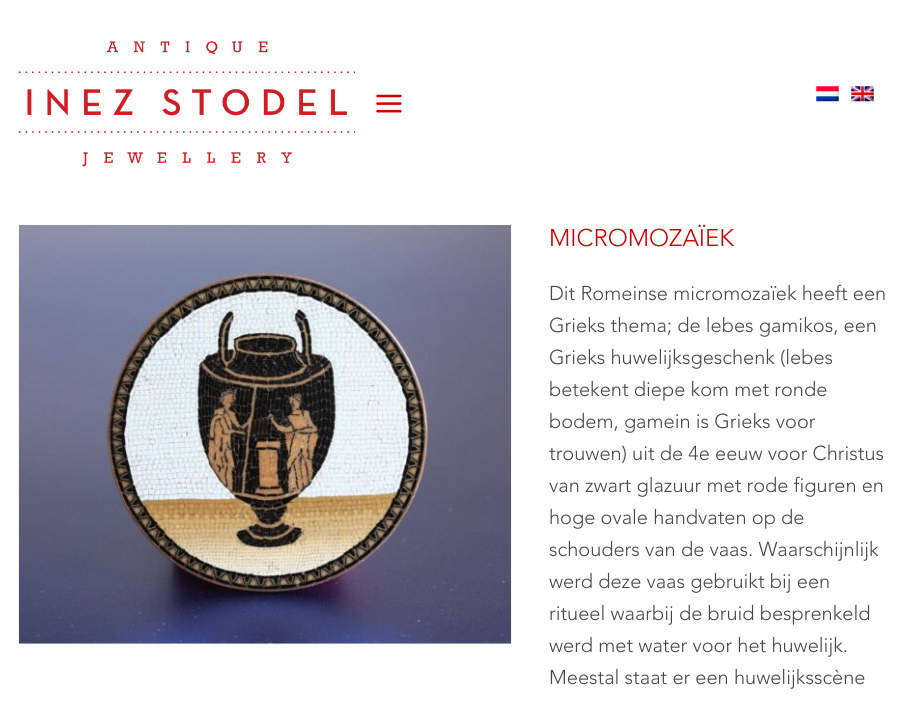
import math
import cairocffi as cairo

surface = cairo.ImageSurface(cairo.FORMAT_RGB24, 908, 712)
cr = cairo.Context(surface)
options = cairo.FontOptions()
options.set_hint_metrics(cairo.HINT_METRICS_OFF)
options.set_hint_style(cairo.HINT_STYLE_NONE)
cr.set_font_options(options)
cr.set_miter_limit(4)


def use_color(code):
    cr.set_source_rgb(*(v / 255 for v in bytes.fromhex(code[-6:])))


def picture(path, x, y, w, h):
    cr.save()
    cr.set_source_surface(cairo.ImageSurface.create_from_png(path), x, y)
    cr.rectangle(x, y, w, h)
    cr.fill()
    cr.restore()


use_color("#ffffff")
cr.paint()
picture("img1.png", 18, 41, 337, 126)
picture("img2.png", 376, 94, 26, 19)
picture("img3.png", 816, 86, 23, 16)
picture("img4.png", 851, 86, 23, 16)
picture("img5.png", 18, 225, 494, 419)
cr.select_font_face("Avenir Light")
cr.set_font_size(24)
use_color("#cc0000")
cr.move_to(549, 246)
cr.show_text("MICROMOZAÏEK")
cr.set_font_size(20)
use_color("#4a4949")
cr.move_to(549, 300)
cr.show_text("Dit Romeinse micromozaïek heeft een")
cr.move_to(549, 332)
cr.show_text("Grieks thema; de lebes gamikos, een")
cr.move_to(549, 364)
cr.show_text("Grieks huwelijksgeschenk (lebes")
cr.move_to(549, 396)
cr.show_text("betekent diepe kom met ronde")
cr.move_to(549, 428)
cr.show_text("bodem, gamein is Grieks voor")
cr.move_to(549, 460)
cr.show_text("trouwen) uit de 4e eeuw voor Christus")
cr.move_to(549, 492)
cr.show_text("van zwart glazuur met rode figuren en")
cr.move_to(549, 524)
cr.show_text("hoge ovale handvaten op de")
cr.move_to(549, 556)
cr.show_text("schouders van de vaas. Waarschijnlijk")
cr.move_to(549, 588)
cr.show_text("werd deze vaas gebruikt bij een")
cr.move_to(549, 620)
cr.show_text("ritueel waarbij de bruid besprenkeld")
cr.move_to(549, 652)
cr.show_text("werd met water voor het huwelijk.")
cr.move_to(549, 684)
cr.show_text("Meestal staat er een huwelijksscène")
surface.write_to_png("result.png")
